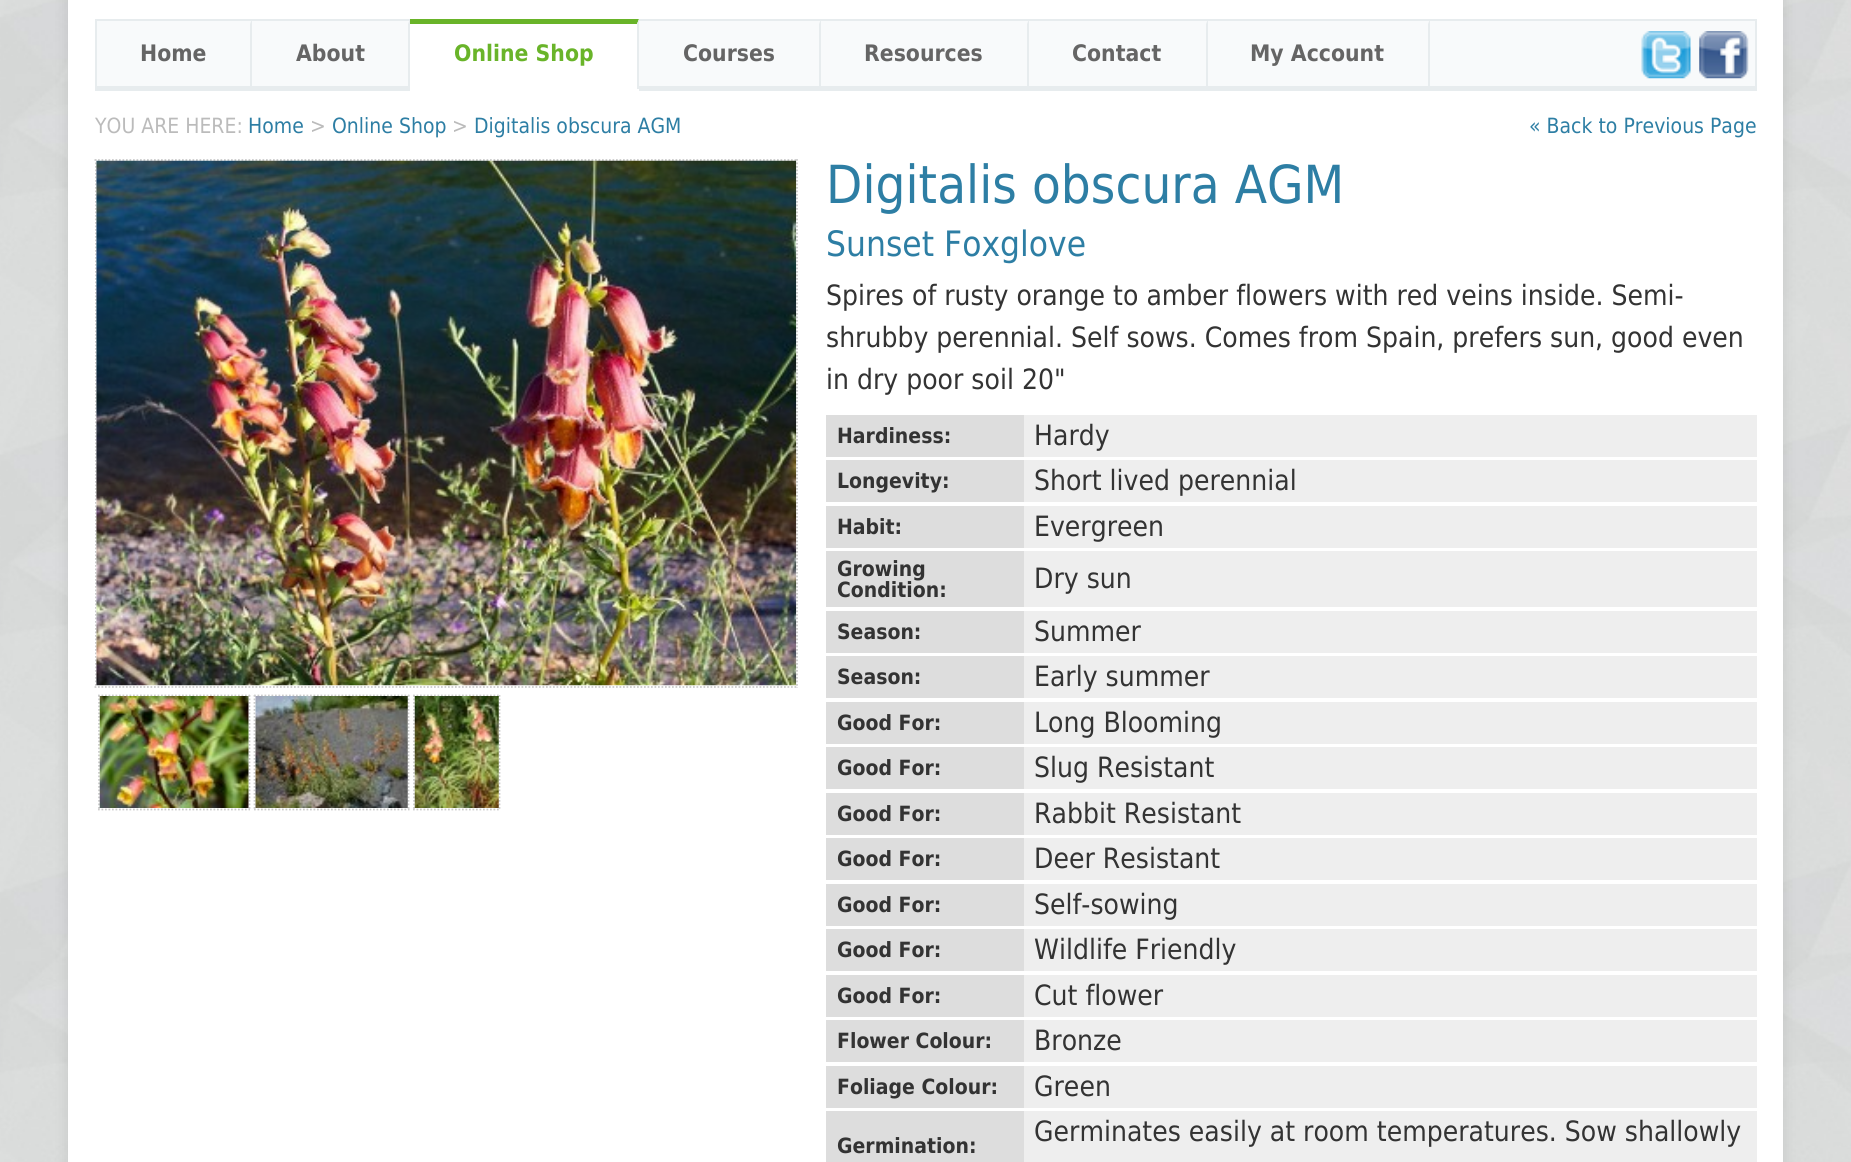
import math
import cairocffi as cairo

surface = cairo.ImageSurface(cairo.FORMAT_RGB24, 1851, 1162)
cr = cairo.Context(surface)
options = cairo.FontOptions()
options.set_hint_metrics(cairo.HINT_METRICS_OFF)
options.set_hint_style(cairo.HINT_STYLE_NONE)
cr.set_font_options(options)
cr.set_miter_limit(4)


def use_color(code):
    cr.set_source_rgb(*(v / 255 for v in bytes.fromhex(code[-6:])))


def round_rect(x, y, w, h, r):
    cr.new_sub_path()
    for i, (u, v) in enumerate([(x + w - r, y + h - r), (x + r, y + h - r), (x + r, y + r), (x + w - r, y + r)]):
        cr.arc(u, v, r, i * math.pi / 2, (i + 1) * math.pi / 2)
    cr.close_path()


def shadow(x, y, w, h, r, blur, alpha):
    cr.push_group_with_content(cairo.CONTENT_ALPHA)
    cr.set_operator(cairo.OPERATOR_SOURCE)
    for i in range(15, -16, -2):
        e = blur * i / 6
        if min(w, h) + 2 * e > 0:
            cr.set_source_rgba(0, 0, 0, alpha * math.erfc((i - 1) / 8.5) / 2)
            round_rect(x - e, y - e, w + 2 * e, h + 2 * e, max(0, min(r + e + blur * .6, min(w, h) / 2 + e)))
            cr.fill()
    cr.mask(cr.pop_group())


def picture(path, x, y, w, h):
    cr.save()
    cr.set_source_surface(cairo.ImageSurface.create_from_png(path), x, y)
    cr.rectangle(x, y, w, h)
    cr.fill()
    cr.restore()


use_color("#ffffff")
cr.paint()
picture("img1.png", 0, 0, 1851, 1162)
use_color("#000000")
shadow(68, -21, 1715, 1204, 0, 7, 0.1)
use_color("#ffffff")
cr.rectangle(68, 0, 1715, 1162)
cr.fill()
use_color("#f8fafb")
cr.rectangle(97, 21, 1658, 65)
cr.fill()
use_color("#e7ecee")
cr.rectangle(95, 19, 1662, 2)
cr.fill()
cr.rectangle(1755, 19, 2, 72)
cr.fill()
cr.rectangle(95, 86, 1662, 5)
cr.fill()
cr.rectangle(95, 19, 2, 72)
cr.fill()
cr.new_path()
cr.move_to(252, 19)
cr.line_to(252, 89)
cr.line_to(250, 89)
cr.line_to(250, 24)
cr.close_path()
cr.fill()
cr.select_font_face("DejaVu Sans", cairo.FONT_SLANT_NORMAL, cairo.FONT_WEIGHT_BOLD)
cr.set_font_size(22.75)
use_color("#656565")
cr.move_to(140, 61)
cr.show_text("Home")
use_color("#e7ecee")
cr.new_path()
cr.move_to(410, 19)
cr.line_to(410, 89)
cr.line_to(408, 89)
cr.line_to(408, 24)
cr.close_path()
cr.fill()
use_color("#656565")
cr.move_to(296, 61)
cr.show_text("About")
use_color("#ffffff")
cr.rectangle(410, 19, 229, 70)
cr.fill()
use_color("#69b429")
cr.new_path()
cr.move_to(410, 19)
cr.line_to(639, 19)
cr.line_to(637, 24)
cr.line_to(410, 24)
cr.close_path()
cr.fill()
use_color("#e7ecee")
cr.new_path()
cr.move_to(639, 19)
cr.line_to(639, 91)
cr.line_to(637, 89)
cr.line_to(637, 24)
cr.close_path()
cr.fill()
use_color("#ffffff")
cr.rectangle(410, 89, 229, 2)
cr.fill()
use_color("#69b429")
cr.move_to(454, 61)
cr.show_text("Online Shop")
use_color("#e7ecee")
cr.new_path()
cr.move_to(821, 19)
cr.line_to(821, 89)
cr.line_to(819, 89)
cr.line_to(819, 24)
cr.close_path()
cr.fill()
use_color("#656565")
cr.move_to(683, 61)
cr.show_text("Courses")
use_color("#e7ecee")
cr.new_path()
cr.move_to(1029, 19)
cr.line_to(1029, 89)
cr.line_to(1027, 89)
cr.line_to(1027, 24)
cr.close_path()
cr.fill()
use_color("#656565")
cr.move_to(864, 61)
cr.show_text("Resources")
use_color("#e7ecee")
cr.new_path()
cr.move_to(1208, 19)
cr.line_to(1208, 89)
cr.line_to(1206, 89)
cr.line_to(1206, 24)
cr.close_path()
cr.fill()
use_color("#656565")
cr.move_to(1072, 61)
cr.show_text("Contact")
use_color("#e7ecee")
cr.new_path()
cr.move_to(1430, 19)
cr.line_to(1430, 89)
cr.line_to(1428, 89)
cr.line_to(1428, 24)
cr.close_path()
cr.fill()
use_color("#656565")
cr.move_to(1250, 61)
cr.show_text("My Account")
picture("img2.png", 1641, 31, 50, 48)
picture("img3.png", 1699, 31, 50, 48)
cr.select_font_face("DejaVu Sans")
cr.set_font_size(21)
use_color("#bbbbbb")
cr.move_to(95, 133)
cr.show_text("YOU ARE HERE:")
use_color("#2d7ea4")
cr.move_to(248, 133)
cr.show_text("Home")
use_color("#bbbbbb")
cr.move_to(310, 133)
cr.show_text(">")
use_color("#2d7ea4")
cr.move_to(332, 133)
cr.show_text("Online Shop")
use_color("#bbbbbb")
cr.move_to(452, 133)
cr.show_text(">")
use_color("#2d7ea4")
cr.move_to(474, 133)
cr.show_text("Digitalis obscura AGM")
cr.move_to(1529, 133)
cr.show_text("« Back to Previous Page")
cr.new_path()
cr.move_to(94.5, 160)
cr.line_to(798, 160)
use_color("#cccccc")
cr.set_line_width(1.8)
cr.set_dash([1.75, 1.75])
cr.stroke()
cr.new_path()
cr.move_to(797, 159)
cr.line_to(797, 688)
cr.stroke()
cr.new_path()
cr.move_to(94.5, 687)
cr.line_to(798, 687)
cr.stroke()
cr.save()
cr.rectangle(95, 159, 1662, 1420)
cr.clip()
cr.new_path()
cr.move_to(95.5, 159)
cr.line_to(95.5, 688)
cr.stroke()
cr.restore()
picture("img4.png", 96, 160, 701, 526)
cr.new_path()
cr.move_to(98, 695.5)
cr.line_to(250, 695.5)
cr.stroke()
cr.new_path()
cr.move_to(249.5, 695)
cr.line_to(249.5, 810)
cr.stroke()
cr.new_path()
cr.move_to(98, 809.5)
cr.line_to(250, 809.5)
cr.stroke()
cr.new_path()
cr.move_to(99, 695)
cr.line_to(99, 810)
cr.stroke()
picture("img5.png", 99, 696, 150, 112)
cr.new_path()
cr.move_to(254, 695.5)
cr.line_to(409.5, 695.5)
cr.stroke()
cr.new_path()
cr.move_to(408.5, 695)
cr.line_to(408.5, 810)
cr.stroke()
cr.new_path()
cr.move_to(254, 809.5)
cr.line_to(409.5, 809.5)
cr.stroke()
cr.new_path()
cr.move_to(254.5, 695)
cr.line_to(254.5, 810)
cr.stroke()
picture("img6.png", 255, 696, 153, 112)
cr.new_path()
cr.move_to(413, 695.5)
cr.line_to(500.5, 695.5)
cr.stroke()
cr.new_path()
cr.move_to(499.5, 695)
cr.line_to(499.5, 810)
cr.stroke()
cr.new_path()
cr.move_to(413, 809.5)
cr.line_to(500.5, 809.5)
cr.stroke()
cr.new_path()
cr.move_to(414, 695)
cr.line_to(414, 810)
cr.stroke()
picture("img7.png", 414, 696, 85, 112)
cr.set_font_size(52.5)
use_color("#2d7ea4")
cr.move_to(826, 203)
cr.show_text("Digitalis obscura AGM")
cr.set_font_size(35)
cr.move_to(826, 256)
cr.show_text("Sunset Foxglove")
cr.set_font_size(28)
use_color("#333333")
cr.move_to(826, 305)
cr.show_text("Spires of rusty orange to amber flowers with red veins inside. Semi-")
cr.move_to(826, 347)
cr.show_text("shrubby perennial. Self sows. Comes from Spain, prefers sun, good even")
cr.move_to(826, 389)
cr.show_text("in dry poor soil 20\"")
use_color("#dddddd")
cr.rectangle(826, 415, 198, 42)
cr.fill()
cr.select_font_face("DejaVu Sans", cairo.FONT_SLANT_NORMAL, cairo.FONT_WEIGHT_BOLD)
cr.set_font_size(21)
use_color("#333333")
cr.move_to(837, 443)
cr.show_text("Hardiness:")
use_color("#eeeeee")
cr.rectangle(1024, 415, 733, 42)
cr.fill()
cr.select_font_face("DejaVu Sans")
cr.set_font_size(28)
use_color("#333333")
cr.move_to(1034, 445)
cr.show_text("Hardy")
use_color("#dddddd")
cr.rectangle(826, 460, 198, 42)
cr.fill()
cr.select_font_face("DejaVu Sans", cairo.FONT_SLANT_NORMAL, cairo.FONT_WEIGHT_BOLD)
cr.set_font_size(21)
use_color("#333333")
cr.move_to(837, 488)
cr.show_text("Longevity:")
use_color("#eeeeee")
cr.rectangle(1024, 460, 733, 42)
cr.fill()
cr.select_font_face("DejaVu Sans")
cr.set_font_size(28)
use_color("#333333")
cr.move_to(1034, 490)
cr.show_text("Short lived perennial")
use_color("#dddddd")
cr.rectangle(826, 506, 198, 42)
cr.fill()
cr.select_font_face("DejaVu Sans", cairo.FONT_SLANT_NORMAL, cairo.FONT_WEIGHT_BOLD)
cr.set_font_size(21)
use_color("#333333")
cr.move_to(837, 534)
cr.show_text("Habit:")
use_color("#eeeeee")
cr.rectangle(1024, 506, 733, 42)
cr.fill()
cr.select_font_face("DejaVu Sans")
cr.set_font_size(28)
use_color("#333333")
cr.move_to(1034, 536)
cr.show_text("Evergreen")
use_color("#dddddd")
cr.rectangle(826, 551, 198, 56)
cr.fill()
cr.select_font_face("DejaVu Sans", cairo.FONT_SLANT_NORMAL, cairo.FONT_WEIGHT_BOLD)
cr.set_font_size(21)
use_color("#333333")
cr.move_to(837, 576)
cr.show_text("Growing")
cr.move_to(837, 597)
cr.show_text("Condition:")
use_color("#eeeeee")
cr.rectangle(1024, 551, 733, 56)
cr.fill()
cr.select_font_face("DejaVu Sans")
cr.set_font_size(28)
use_color("#333333")
cr.move_to(1034, 588)
cr.show_text("Dry sun")
use_color("#dddddd")
cr.rectangle(826, 611, 198, 42)
cr.fill()
cr.select_font_face("DejaVu Sans", cairo.FONT_SLANT_NORMAL, cairo.FONT_WEIGHT_BOLD)
cr.set_font_size(21)
use_color("#333333")
cr.move_to(837, 639)
cr.show_text("Season:")
use_color("#eeeeee")
cr.rectangle(1024, 611, 733, 42)
cr.fill()
cr.select_font_face("DejaVu Sans")
cr.set_font_size(28)
use_color("#333333")
cr.move_to(1034, 641)
cr.show_text("Summer")
use_color("#dddddd")
cr.rectangle(826, 656, 198, 42)
cr.fill()
cr.select_font_face("DejaVu Sans", cairo.FONT_SLANT_NORMAL, cairo.FONT_WEIGHT_BOLD)
cr.set_font_size(21)
use_color("#333333")
cr.move_to(837, 684)
cr.show_text("Season:")
use_color("#eeeeee")
cr.rectangle(1024, 656, 733, 42)
cr.fill()
cr.select_font_face("DejaVu Sans")
cr.set_font_size(28)
use_color("#333333")
cr.move_to(1034, 686)
cr.show_text("Early summer")
use_color("#dddddd")
cr.rectangle(826, 702, 198, 42)
cr.fill()
cr.select_font_face("DejaVu Sans", cairo.FONT_SLANT_NORMAL, cairo.FONT_WEIGHT_BOLD)
cr.set_font_size(21)
use_color("#333333")
cr.move_to(837, 730)
cr.show_text("Good For:")
use_color("#eeeeee")
cr.rectangle(1024, 702, 733, 42)
cr.fill()
cr.select_font_face("DejaVu Sans")
cr.set_font_size(28)
use_color("#333333")
cr.move_to(1034, 732)
cr.show_text("Long Blooming")
use_color("#dddddd")
cr.rectangle(826, 747, 198, 42)
cr.fill()
cr.select_font_face("DejaVu Sans", cairo.FONT_SLANT_NORMAL, cairo.FONT_WEIGHT_BOLD)
cr.set_font_size(21)
use_color("#333333")
cr.move_to(837, 775)
cr.show_text("Good For:")
use_color("#eeeeee")
cr.rectangle(1024, 747, 733, 42)
cr.fill()
cr.select_font_face("DejaVu Sans")
cr.set_font_size(28)
use_color("#333333")
cr.move_to(1034, 777)
cr.show_text("Slug Resistant")
use_color("#dddddd")
cr.rectangle(826, 793, 198, 42)
cr.fill()
cr.select_font_face("DejaVu Sans", cairo.FONT_SLANT_NORMAL, cairo.FONT_WEIGHT_BOLD)
cr.set_font_size(21)
use_color("#333333")
cr.move_to(837, 821)
cr.show_text("Good For:")
use_color("#eeeeee")
cr.rectangle(1024, 793, 733, 42)
cr.fill()
cr.select_font_face("DejaVu Sans")
cr.set_font_size(28)
use_color("#333333")
cr.move_to(1034, 823)
cr.show_text("Rabbit Resistant")
use_color("#dddddd")
cr.rectangle(826, 838, 198, 42)
cr.fill()
cr.select_font_face("DejaVu Sans", cairo.FONT_SLANT_NORMAL, cairo.FONT_WEIGHT_BOLD)
cr.set_font_size(21)
use_color("#333333")
cr.move_to(837, 866)
cr.show_text("Good For:")
use_color("#eeeeee")
cr.rectangle(1024, 838, 733, 42)
cr.fill()
cr.select_font_face("DejaVu Sans")
cr.set_font_size(28)
use_color("#333333")
cr.move_to(1034, 868)
cr.show_text("Deer Resistant")
use_color("#dddddd")
cr.rectangle(826, 884, 198, 42)
cr.fill()
cr.select_font_face("DejaVu Sans", cairo.FONT_SLANT_NORMAL, cairo.FONT_WEIGHT_BOLD)
cr.set_font_size(21)
use_color("#333333")
cr.move_to(837, 912)
cr.show_text("Good For:")
use_color("#eeeeee")
cr.rectangle(1024, 884, 733, 42)
cr.fill()
cr.select_font_face("DejaVu Sans")
cr.set_font_size(28)
use_color("#333333")
cr.move_to(1034, 914)
cr.show_text("Self-sowing")
use_color("#dddddd")
cr.rectangle(826, 929, 198, 42)
cr.fill()
cr.select_font_face("DejaVu Sans", cairo.FONT_SLANT_NORMAL, cairo.FONT_WEIGHT_BOLD)
cr.set_font_size(21)
use_color("#333333")
cr.move_to(837, 957)
cr.show_text("Good For:")
use_color("#eeeeee")
cr.rectangle(1024, 929, 733, 42)
cr.fill()
cr.select_font_face("DejaVu Sans")
cr.set_font_size(28)
use_color("#333333")
cr.move_to(1034, 959)
cr.show_text("Wildlife Friendly")
use_color("#dddddd")
cr.rectangle(826, 975, 198, 42)
cr.fill()
cr.select_font_face("DejaVu Sans", cairo.FONT_SLANT_NORMAL, cairo.FONT_WEIGHT_BOLD)
cr.set_font_size(21)
use_color("#333333")
cr.move_to(837, 1003)
cr.show_text("Good For:")
use_color("#eeeeee")
cr.rectangle(1024, 975, 733, 42)
cr.fill()
cr.select_font_face("DejaVu Sans")
cr.set_font_size(28)
use_color("#333333")
cr.move_to(1034, 1005)
cr.show_text("Cut flower")
use_color("#dddddd")
cr.rectangle(826, 1020, 198, 42)
cr.fill()
cr.select_font_face("DejaVu Sans", cairo.FONT_SLANT_NORMAL, cairo.FONT_WEIGHT_BOLD)
cr.set_font_size(21)
use_color("#333333")
cr.move_to(837, 1048)
cr.show_text("Flower Colour:")
use_color("#eeeeee")
cr.rectangle(1024, 1020, 733, 42)
cr.fill()
cr.select_font_face("DejaVu Sans")
cr.set_font_size(28)
use_color("#333333")
cr.move_to(1034, 1050)
cr.show_text("Bronze")
use_color("#dddddd")
cr.rectangle(826, 1066, 198, 42)
cr.fill()
cr.select_font_face("DejaVu Sans", cairo.FONT_SLANT_NORMAL, cairo.FONT_WEIGHT_BOLD)
cr.set_font_size(21)
use_color("#333333")
cr.move_to(837, 1094)
cr.show_text("Foliage Colour:")
use_color("#eeeeee")
cr.rectangle(1024, 1066, 733, 42)
cr.fill()
cr.select_font_face("DejaVu Sans")
cr.set_font_size(28)
use_color("#333333")
cr.move_to(1034, 1096)
cr.show_text("Green")
use_color("#dddddd")
cr.rectangle(826, 1111, 198, 51)
cr.fill()
cr.select_font_face("DejaVu Sans", cairo.FONT_SLANT_NORMAL, cairo.FONT_WEIGHT_BOLD)
cr.set_font_size(21)
use_color("#333333")
cr.move_to(837, 1153)
cr.show_text("Germination:")
use_color("#eeeeee")
cr.rectangle(1024, 1111, 733, 51)
cr.fill()
cr.select_font_face("DejaVu Sans")
cr.set_font_size(28)
use_color("#333333")
cr.move_to(1034, 1141)
cr.show_text("Germinates easily at room temperatures. Sow shallowly")
surface.write_to_png("result.png")
